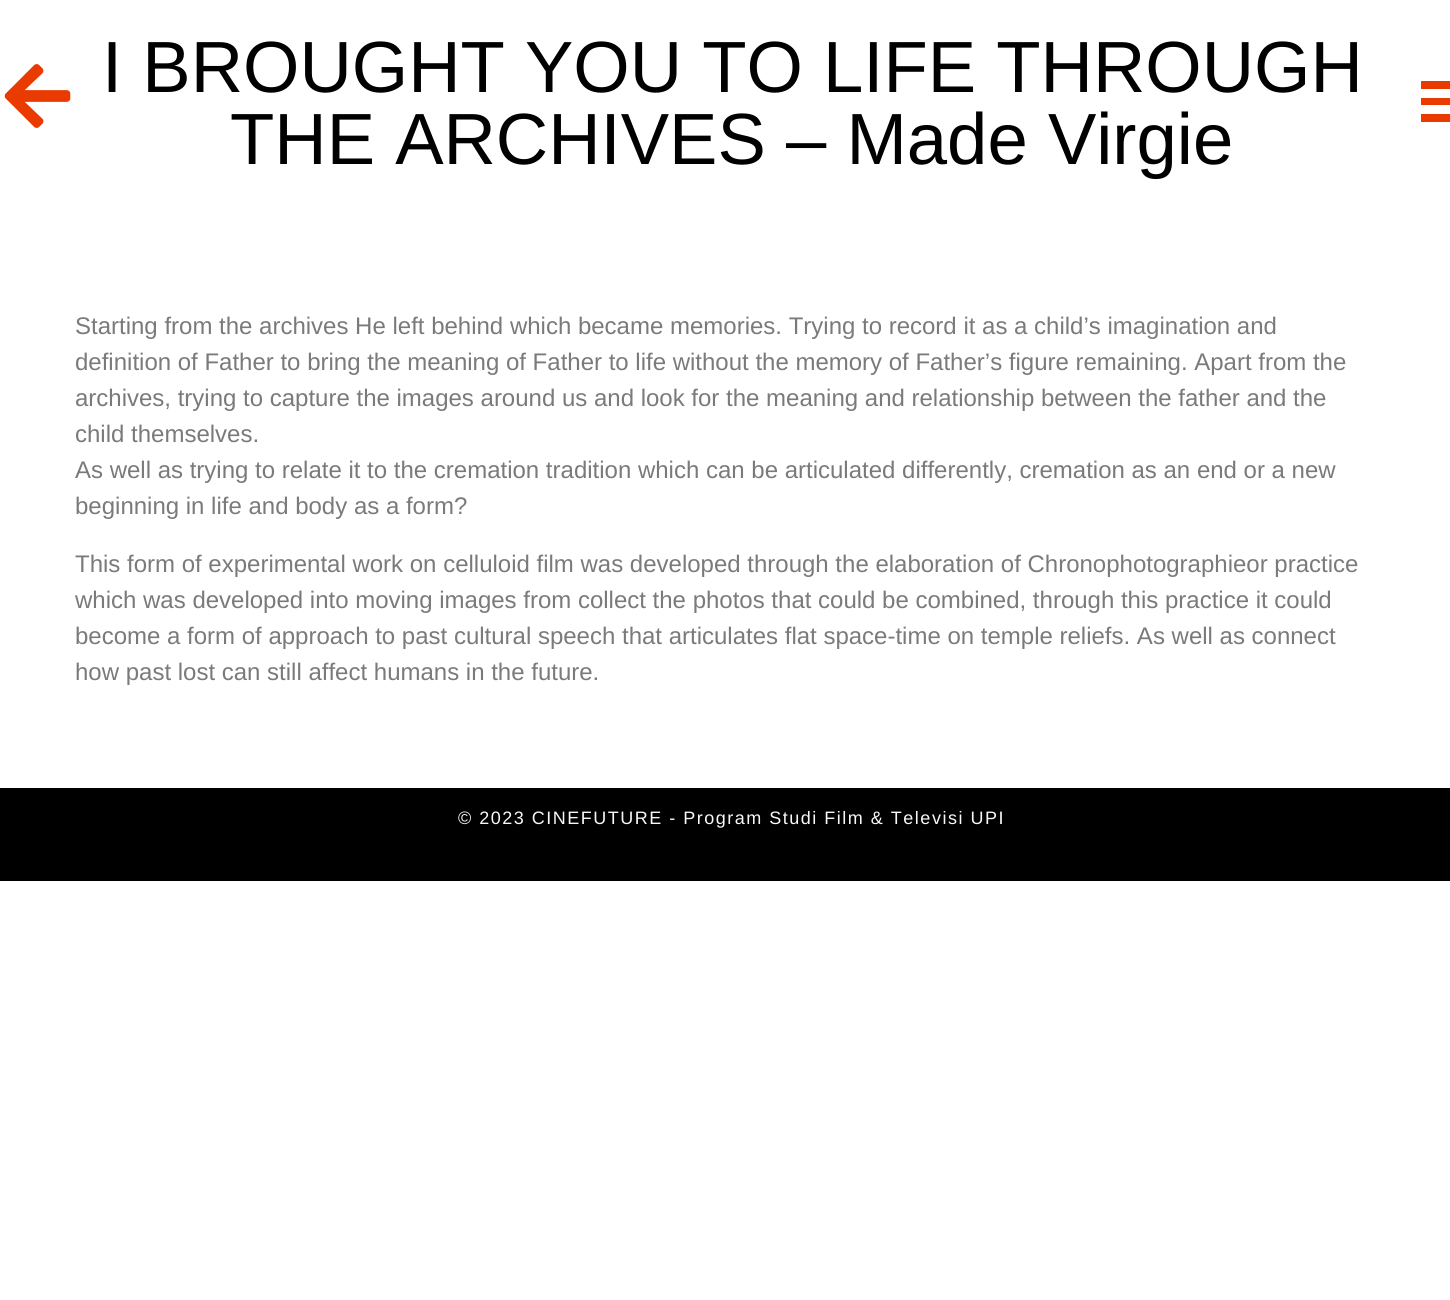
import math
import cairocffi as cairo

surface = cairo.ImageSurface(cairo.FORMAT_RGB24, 1450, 1300)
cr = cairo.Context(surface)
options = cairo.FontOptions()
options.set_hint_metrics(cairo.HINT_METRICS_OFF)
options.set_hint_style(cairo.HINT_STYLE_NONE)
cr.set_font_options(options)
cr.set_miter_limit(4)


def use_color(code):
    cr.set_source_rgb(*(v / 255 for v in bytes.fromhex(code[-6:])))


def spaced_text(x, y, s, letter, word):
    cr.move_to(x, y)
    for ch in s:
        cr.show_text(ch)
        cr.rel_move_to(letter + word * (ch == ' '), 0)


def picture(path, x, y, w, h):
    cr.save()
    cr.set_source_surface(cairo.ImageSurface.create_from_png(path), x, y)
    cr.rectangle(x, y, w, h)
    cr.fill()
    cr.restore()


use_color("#ffffff")
cr.paint()
picture("img1.png", 4, 64, 67, 64)
cr.select_font_face("Liberation Sans")
cr.set_font_size(72.5)
use_color("#000000")
cr.move_to(102, 92)
cr.show_text("I BROUGHT YOU TO LIFE THROUGH")
cr.move_to(230, 164)
cr.show_text("THE ARCHIVES – Made Virgie")
use_color("#e93b00")
cr.rectangle(1421, 81, 29, 8)
cr.fill()
cr.rectangle(1421, 98, 29, 7)
cr.fill()
cr.rectangle(1421, 114, 29, 8)
cr.fill()
cr.set_font_size(24)
use_color("#7a7a7a")
cr.move_to(75, 334)
cr.show_text("Starting from the archives He left behind which became memories. Trying to record it as a child’s imagination and")
cr.move_to(75, 370)
cr.show_text("definition of Father to bring the meaning of Father to life without the memory of Father’s figure remaining. Apart from the")
cr.move_to(75, 406)
cr.show_text("archives, trying to capture the images around us and look for the meaning and relationship between the father and the")
cr.move_to(75, 442)
cr.show_text("child themselves.")
cr.move_to(75, 478)
cr.show_text("As well as trying to relate it to the cremation tradition which can be articulated differently, cremation as an end or a new")
cr.move_to(75, 514)
cr.show_text("beginning in life and body as a form?")
cr.move_to(75, 572)
cr.show_text("This form of experimental work on celluloid film was developed through the elaboration of Chronophotographieor practice")
cr.move_to(75, 608)
cr.show_text("which was developed into moving images from collect the photos that could be combined, through this practice it could")
cr.move_to(75, 644)
cr.show_text("become a form of approach to past cultural speech that articulates flat space-time on temple reliefs. As well as connect")
cr.move_to(75, 680)
cr.show_text("how past lost can still affect humans in the future.")
use_color("#000000")
cr.rectangle(0, 788, 1450, 93)
cr.fill()
cr.set_font_size(18)
use_color("#f8f8f8")
spaced_text(458, 824, "© 2023 CINEFUTURE - Program Studi Film & Televisi UPI", 1.5, 0)
surface.write_to_png("result.png")
